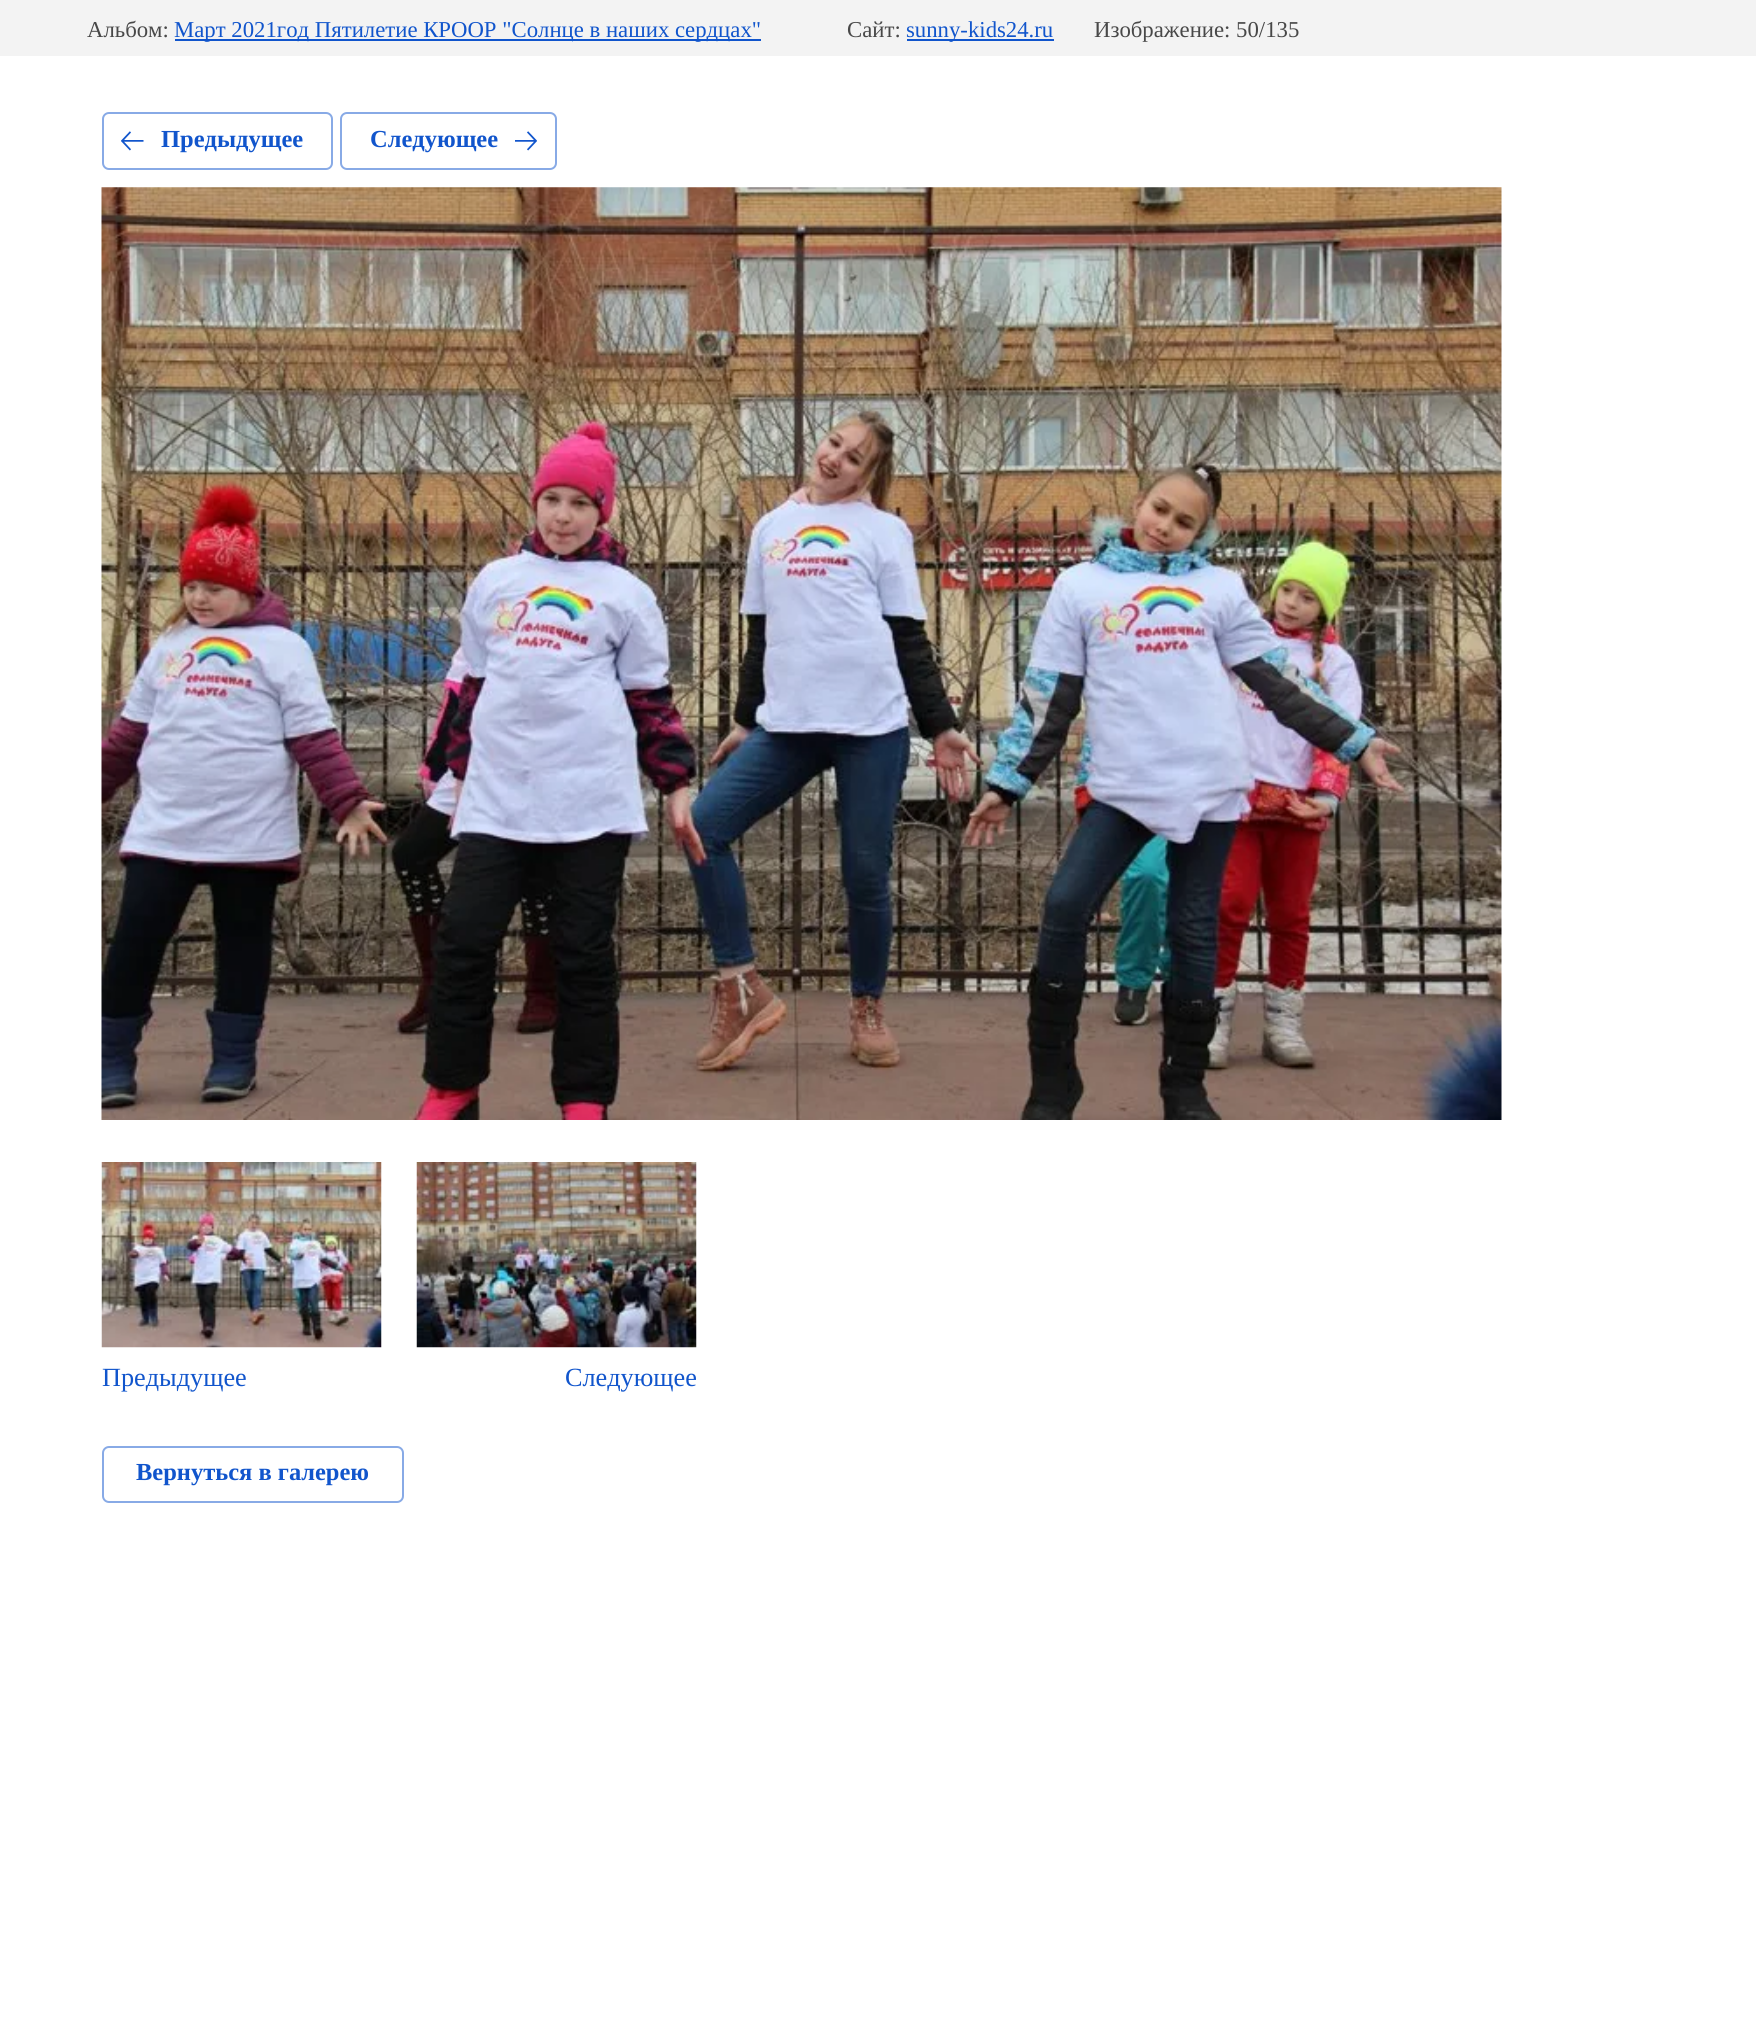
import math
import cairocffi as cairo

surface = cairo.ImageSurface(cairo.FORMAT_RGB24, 1756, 2042)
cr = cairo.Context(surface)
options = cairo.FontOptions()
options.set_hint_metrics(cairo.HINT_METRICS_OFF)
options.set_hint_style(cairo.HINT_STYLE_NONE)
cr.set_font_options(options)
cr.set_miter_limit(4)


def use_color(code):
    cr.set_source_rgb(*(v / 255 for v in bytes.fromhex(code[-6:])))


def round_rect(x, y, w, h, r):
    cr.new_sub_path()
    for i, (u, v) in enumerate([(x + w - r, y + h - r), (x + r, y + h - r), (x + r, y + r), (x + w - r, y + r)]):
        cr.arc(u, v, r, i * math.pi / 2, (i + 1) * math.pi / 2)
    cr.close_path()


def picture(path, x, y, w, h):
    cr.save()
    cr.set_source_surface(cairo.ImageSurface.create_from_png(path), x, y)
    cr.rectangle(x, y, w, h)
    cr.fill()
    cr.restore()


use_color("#ffffff")
cr.paint()
use_color("#f3f3f3")
cr.rectangle(0, 0, 1756, 56)
cr.fill()
cr.select_font_face("Liberation Serif")
cr.set_font_size(22.75)
use_color("#484848")
cr.move_to(87, 37)
cr.show_text("Альбом:")
use_color("#1155cc")
cr.rectangle(175, 39, 586, 2)
cr.fill()
cr.move_to(174, 37)
cr.show_text("Март 2021год Пятилетие КРООР \"Солнце в наших сердцах\"")
use_color("#484848")
cr.move_to(847, 37)
cr.show_text("Сайт:")
use_color("#1155cc")
cr.rectangle(907, 39, 147, 2)
cr.fill()
cr.move_to(906, 37)
cr.show_text("sunny-kids24.ru")
use_color("#484848")
cr.move_to(1094, 37)
cr.show_text("Изображение: 50/135")
round_rect(103, 113, 229, 56, 6)
use_color("#88aae6")
cr.stroke()
picture("img1.png", 121, 131, 23, 20)
cr.select_font_face("Liberation Serif", cairo.FONT_SLANT_NORMAL, cairo.FONT_WEIGHT_BOLD)
cr.set_font_size(24.5)
use_color("#1155cc")
cr.move_to(161, 147)
cr.show_text("Предыдущее")
round_rect(341, 113, 215, 56, 6)
use_color("#88aae6")
cr.stroke()
use_color("#1155cc")
cr.move_to(370, 147)
cr.show_text("Следующее")
picture("img2.png", 515, 131, 22, 20)
picture("img3.png", 101, 187, 1401, 933)
picture("img4.png", 101, 1162, 281, 186)
cr.select_font_face("Liberation Serif")
cr.set_font_size(26.25)
cr.move_to(102, 1386)
cr.show_text("Предыдущее")
picture("img5.png", 416, 1162, 281, 186)
cr.move_to(565, 1386)
cr.show_text("Следующее")
round_rect(103, 1447, 300, 55, 6)
use_color("#88aae6")
cr.stroke()
cr.select_font_face("Liberation Serif", cairo.FONT_SLANT_NORMAL, cairo.FONT_WEIGHT_BOLD)
cr.set_font_size(24.5)
use_color("#1155cc")
cr.move_to(136, 1480)
cr.show_text("Вернуться в галерею")
surface.write_to_png("result.png")
